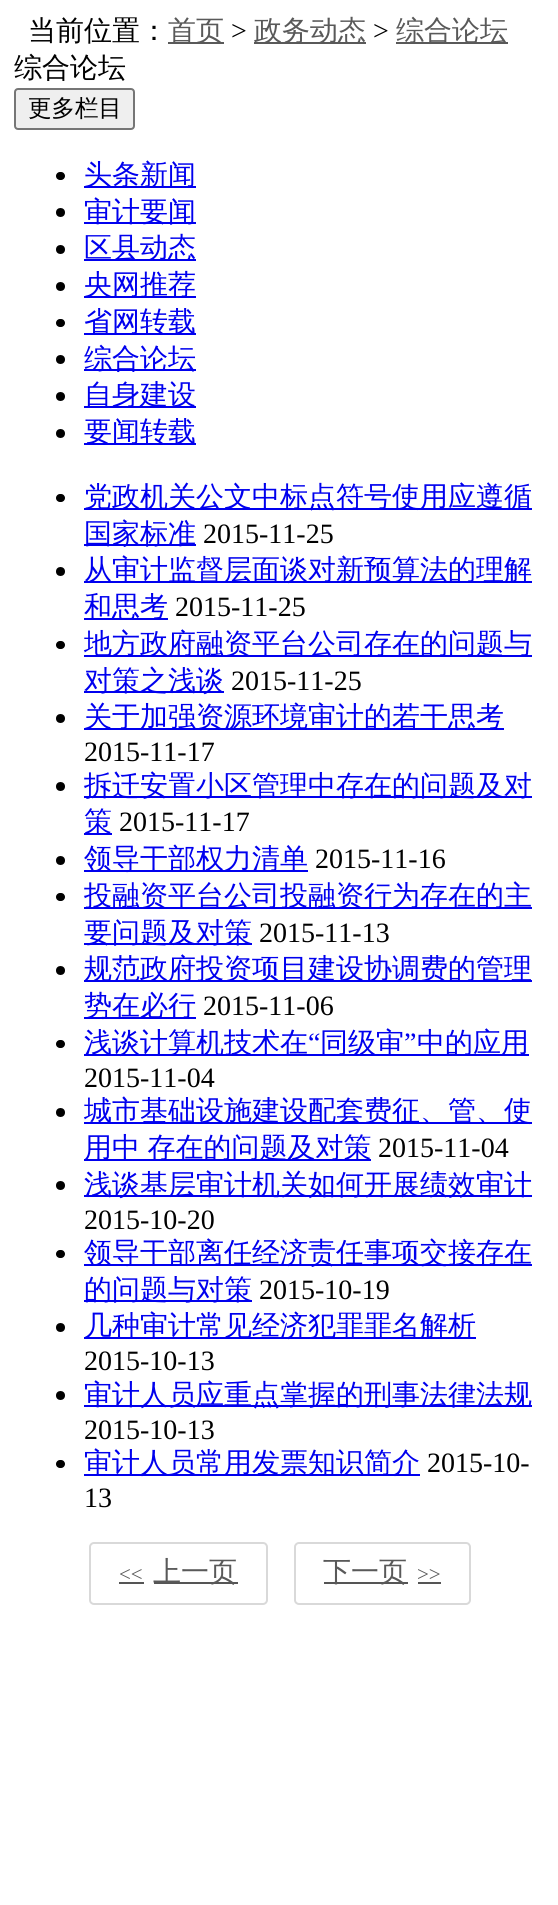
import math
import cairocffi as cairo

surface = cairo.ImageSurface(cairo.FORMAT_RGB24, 558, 1905)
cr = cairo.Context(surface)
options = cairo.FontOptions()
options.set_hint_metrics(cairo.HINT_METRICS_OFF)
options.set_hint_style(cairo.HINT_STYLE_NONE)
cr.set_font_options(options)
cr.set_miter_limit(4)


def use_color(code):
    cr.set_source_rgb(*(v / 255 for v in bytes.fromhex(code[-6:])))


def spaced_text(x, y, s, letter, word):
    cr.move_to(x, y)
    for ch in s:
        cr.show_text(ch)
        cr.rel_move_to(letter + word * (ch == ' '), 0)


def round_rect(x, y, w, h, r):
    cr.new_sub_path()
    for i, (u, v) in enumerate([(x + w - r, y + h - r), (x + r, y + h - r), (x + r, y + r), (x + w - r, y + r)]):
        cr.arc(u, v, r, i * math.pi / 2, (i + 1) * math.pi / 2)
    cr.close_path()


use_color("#ffffff")
cr.paint()
cr.select_font_face("WenQuanYi Zen Hei Medium")
cr.set_font_size(28)
use_color("#000000")
cr.move_to(28, 40)
cr.show_text("当前位置：")
use_color("#595959")
cr.rectangle(168, 42, 56, 2)
cr.fill()
cr.move_to(168, 40)
cr.show_text("首页")
cr.select_font_face("Liberation Serif")
use_color("#000000")
cr.move_to(231, 40)
cr.show_text(">")
use_color("#595959")
cr.rectangle(254, 42, 112, 2)
cr.fill()
cr.select_font_face("WenQuanYi Zen Hei Medium")
cr.move_to(254, 40)
cr.show_text("政务动态")
cr.select_font_face("Liberation Serif")
use_color("#000000")
cr.move_to(373, 40)
cr.show_text(">")
use_color("#595959")
cr.rectangle(396, 42, 112, 2)
cr.fill()
cr.select_font_face("WenQuanYi Zen Hei Medium")
cr.move_to(396, 40)
cr.show_text("综合论坛")
use_color("#000000")
cr.move_to(14, 77)
cr.show_text("综合论坛")
use_color("#efefef")
round_rect(15, 89, 119, 40, 3)
cr.fill_preserve()
use_color("#767676")
cr.stroke()
cr.set_font_size(23.5)
use_color("#000000")
cr.move_to(28, 116)
cr.show_text("更多栏目")
round_rect(56, 172, 9, 8, 4)
cr.fill()
use_color("#0000ee")
cr.rectangle(84, 186, 112, 2)
cr.fill()
cr.set_font_size(28)
cr.move_to(84, 184)
cr.show_text("头条新闻")
use_color("#000000")
cr.new_path()
cr.arc(60.5, 212.5, 4.5, 0, 2 * math.pi)
cr.fill()
use_color("#0000ee")
cr.rectangle(84, 222, 112, 2)
cr.fill()
cr.move_to(84, 221)
cr.show_text("审计要闻")
use_color("#000000")
cr.new_path()
cr.arc(60.5, 249.5, 4.5, 0, 2 * math.pi)
cr.fill()
use_color("#0000ee")
cr.rectangle(84, 259, 112, 2)
cr.fill()
cr.move_to(84, 257)
cr.show_text("区县动态")
use_color("#000000")
cr.new_path()
cr.arc(60.5, 286.5, 4.5, 0, 2 * math.pi)
cr.fill()
use_color("#0000ee")
cr.rectangle(84, 296, 112, 2)
cr.fill()
cr.move_to(84, 294)
cr.show_text("央网推荐")
use_color("#000000")
round_rect(56, 319, 9, 8, 4)
cr.fill()
use_color("#0000ee")
cr.rectangle(84, 333, 112, 2)
cr.fill()
cr.move_to(84, 331)
cr.show_text("省网转载")
use_color("#000000")
cr.new_path()
cr.arc(60.5, 359.5, 4.5, 0, 2 * math.pi)
cr.fill()
use_color("#0000ee")
cr.rectangle(84, 369, 112, 2)
cr.fill()
cr.move_to(84, 368)
cr.show_text("综合论坛")
use_color("#000000")
cr.new_path()
cr.arc(60.5, 396.5, 4.5, 0, 2 * math.pi)
cr.fill()
use_color("#0000ee")
cr.rectangle(84, 406, 112, 2)
cr.fill()
cr.move_to(84, 404)
cr.show_text("自身建设")
use_color("#000000")
cr.new_path()
cr.arc(60.5, 433.5, 4.5, 0, 2 * math.pi)
cr.fill()
use_color("#0000ee")
cr.rectangle(84, 443, 112, 2)
cr.fill()
cr.move_to(84, 441)
cr.show_text("要闻转载")
use_color("#000000")
round_rect(56, 494, 9, 8, 4)
cr.fill()
use_color("#0000ee")
cr.rectangle(84, 508, 448, 2)
cr.fill()
cr.move_to(84, 506)
cr.show_text("党政机关公文中标点符号使用应遵循")
cr.rectangle(84, 544, 112, 2)
cr.fill()
cr.move_to(84, 543)
cr.show_text("国家标准")
cr.select_font_face("Liberation Serif")
use_color("#000000")
cr.move_to(203, 543)
cr.show_text("2015-11-25")
cr.new_path()
cr.arc(60.5, 571.5, 4.5, 0, 2 * math.pi)
cr.fill()
use_color("#0000ee")
cr.rectangle(84, 581, 448, 2)
cr.fill()
cr.select_font_face("WenQuanYi Zen Hei Medium")
cr.move_to(84, 579)
cr.show_text("从审计监督层面谈对新预算法的理解")
cr.rectangle(84, 618, 84, 2)
cr.fill()
cr.move_to(84, 616)
cr.show_text("和思考")
cr.select_font_face("Liberation Serif")
use_color("#000000")
cr.move_to(175, 616)
cr.show_text("2015-11-25")
round_rect(56, 641, 9, 8, 4)
cr.fill()
use_color("#0000ee")
cr.rectangle(84, 655, 448, 2)
cr.fill()
cr.select_font_face("WenQuanYi Zen Hei Medium")
cr.move_to(84, 653)
cr.show_text("地方政府融资平台公司存在的问题与")
cr.rectangle(84, 691, 140, 2)
cr.fill()
cr.move_to(84, 690)
cr.show_text("对策之浅谈")
cr.select_font_face("Liberation Serif")
use_color("#000000")
cr.move_to(231, 690)
cr.show_text("2015-11-25")
cr.new_path()
cr.arc(60.5, 718.5, 4.5, 0, 2 * math.pi)
cr.fill()
use_color("#0000ee")
cr.rectangle(84, 728, 420, 2)
cr.fill()
cr.select_font_face("WenQuanYi Zen Hei Medium")
cr.move_to(84, 726)
cr.show_text("关于加强资源环境审计的若干思考")
cr.select_font_face("Liberation Serif")
use_color("#000000")
cr.move_to(84, 761)
cr.show_text("2015-11-17")
cr.new_path()
cr.arc(60.5, 786.5, 4.5, 0, 2 * math.pi)
cr.fill()
use_color("#0000ee")
cr.rectangle(84, 796, 448, 2)
cr.fill()
cr.select_font_face("WenQuanYi Zen Hei Medium")
cr.move_to(84, 795)
cr.show_text("拆迁安置小区管理中存在的问题及对")
cr.rectangle(84, 833, 28, 2)
cr.fill()
cr.move_to(84, 831)
cr.show_text("策")
cr.select_font_face("Liberation Serif")
use_color("#000000")
cr.move_to(119, 831)
cr.show_text("2015-11-17")
cr.new_path()
cr.arc(60.5, 860.5, 4.5, 0, 2 * math.pi)
cr.fill()
use_color("#0000ee")
cr.rectangle(84, 870, 224, 2)
cr.fill()
cr.select_font_face("WenQuanYi Zen Hei Medium")
cr.move_to(84, 868)
cr.show_text("领导干部权力清单")
cr.select_font_face("Liberation Serif")
use_color("#000000")
cr.move_to(315, 868)
cr.show_text("2015-11-16")
round_rect(56, 893, 9, 8, 4)
cr.fill()
use_color("#0000ee")
cr.rectangle(84, 907, 448, 2)
cr.fill()
cr.select_font_face("WenQuanYi Zen Hei Medium")
cr.move_to(84, 905)
cr.show_text("投融资平台公司投融资行为存在的主")
cr.rectangle(84, 943, 168, 2)
cr.fill()
cr.move_to(84, 942)
cr.show_text("要问题及对策")
cr.select_font_face("Liberation Serif")
use_color("#000000")
cr.move_to(259, 942)
cr.show_text("2015-11-13")
cr.new_path()
cr.arc(60.5, 970.5, 4.5, 0, 2 * math.pi)
cr.fill()
use_color("#0000ee")
cr.rectangle(84, 980, 448, 2)
cr.fill()
cr.select_font_face("WenQuanYi Zen Hei Medium")
cr.move_to(84, 978)
cr.show_text("规范政府投资项目建设协调费的管理")
cr.rectangle(84, 1017, 112, 2)
cr.fill()
cr.move_to(84, 1015)
cr.show_text("势在必行")
cr.select_font_face("Liberation Serif")
use_color("#000000")
cr.move_to(203, 1015)
cr.show_text("2015-11-06")
use_color("#0000ee")
cr.rectangle(84, 1054, 445, 2)
cr.fill()
cr.select_font_face("WenQuanYi Zen Hei Medium")
cr.move_to(84, 1052)
cr.show_text("浅谈计算机技术在")
cr.select_font_face("Liberation Serif")
cr.move_to(308, 1052)
cr.show_text("“")
cr.select_font_face("WenQuanYi Zen Hei Medium")
cr.move_to(320, 1052)
cr.show_text("同级审")
cr.select_font_face("Liberation Serif")
cr.move_to(404, 1052)
cr.show_text("”")
cr.select_font_face("WenQuanYi Zen Hei Medium")
cr.move_to(417, 1052)
cr.show_text("中的应用")
use_color("#000000")
round_rect(56, 1040, 9, 8, 4)
cr.fill()
cr.select_font_face("Liberation Serif")
cr.move_to(84, 1087)
cr.show_text("2015-11-04")
cr.new_path()
cr.arc(60.5, 1112.5, 4.5, 0, 2 * math.pi)
cr.fill()
use_color("#0000ee")
cr.rectangle(84, 1122, 448, 2)
cr.fill()
cr.select_font_face("WenQuanYi Zen Hei Medium")
cr.move_to(84, 1120)
cr.show_text("城市基础设施建设配套费征、管、使")
cr.rectangle(84, 1159, 287, 2)
cr.fill()
spaced_text(84, 1157, "用中 存在的问题及对策", 0, -1)
cr.select_font_face("Liberation Serif")
use_color("#000000")
cr.move_to(378, 1157)
cr.show_text("2015-11-04")
cr.new_path()
cr.arc(60.5, 1185.5, 4.5, 0, 2 * math.pi)
cr.fill()
use_color("#0000ee")
cr.rectangle(84, 1195, 448, 2)
cr.fill()
cr.select_font_face("WenQuanYi Zen Hei Medium")
cr.move_to(84, 1194)
cr.show_text("浅谈基层审计机关如何开展绩效审计")
cr.select_font_face("Liberation Serif")
use_color("#000000")
cr.move_to(84, 1229)
cr.show_text("2015-10-20")
round_rect(56, 1250, 9, 8, 4)
cr.fill()
use_color("#0000ee")
cr.rectangle(84, 1264, 448, 2)
cr.fill()
cr.select_font_face("WenQuanYi Zen Hei Medium")
cr.move_to(84, 1262)
cr.show_text("领导干部离任经济责任事项交接存在")
cr.rectangle(84, 1300, 168, 2)
cr.fill()
cr.move_to(84, 1299)
cr.show_text("的问题与对策")
cr.select_font_face("Liberation Serif")
use_color("#000000")
cr.move_to(259, 1299)
cr.show_text("2015-10-19")
cr.new_path()
cr.arc(60.5, 1327.5, 4.5, 0, 2 * math.pi)
cr.fill()
use_color("#0000ee")
cr.rectangle(84, 1337, 392, 2)
cr.fill()
cr.select_font_face("WenQuanYi Zen Hei Medium")
cr.move_to(84, 1335)
cr.show_text("几种审计常见经济犯罪罪名解析")
cr.select_font_face("Liberation Serif")
use_color("#000000")
cr.move_to(84, 1370)
cr.show_text("2015-10-13")
cr.new_path()
cr.arc(60.5, 1395.5, 4.5, 0, 2 * math.pi)
cr.fill()
use_color("#0000ee")
cr.rectangle(84, 1405, 448, 2)
cr.fill()
cr.select_font_face("WenQuanYi Zen Hei Medium")
cr.move_to(84, 1404)
cr.show_text("审计人员应重点掌握的刑事法律法规")
cr.select_font_face("Liberation Serif")
use_color("#000000")
cr.move_to(84, 1439)
cr.show_text("2015-10-13")
round_rect(56, 1460, 9, 8, 4)
cr.fill()
use_color("#0000ee")
cr.rectangle(84, 1474, 336, 2)
cr.fill()
cr.select_font_face("WenQuanYi Zen Hei Medium")
cr.move_to(84, 1472)
cr.show_text("审计人员常用发票知识简介")
cr.select_font_face("Liberation Serif")
use_color("#000000")
cr.move_to(427, 1472)
cr.show_text("2015-10-")
cr.move_to(84, 1507)
cr.show_text("13")
round_rect(90, 1543, 177, 61, 4)
use_color("#d9d9d9")
cr.stroke()
cr.set_font_size(21)
use_color("#595959")
cr.move_to(119, 1581)
cr.show_text("<<")
use_color("#555555")
cr.rectangle(119, 1582, 25, 2)
cr.fill()
cr.rectangle(154, 1582, 84, 2)
cr.fill()
cr.select_font_face("WenQuanYi Zen Hei Medium")
cr.set_font_size(28)
use_color("#595959")
cr.move_to(153, 1581)
cr.show_text("上一页")
round_rect(295, 1543, 175, 61, 4)
use_color("#d9d9d9")
cr.stroke()
use_color("#555555")
cr.rectangle(324, 1582, 84, 2)
cr.fill()
use_color("#595959")
cr.move_to(323, 1581)
cr.show_text("下一页")
cr.select_font_face("Liberation Serif")
cr.set_font_size(21)
cr.move_to(417, 1581)
cr.show_text(">>")
use_color("#555555")
cr.rectangle(418, 1582, 23, 2)
cr.fill()
surface.write_to_png("result.png")
